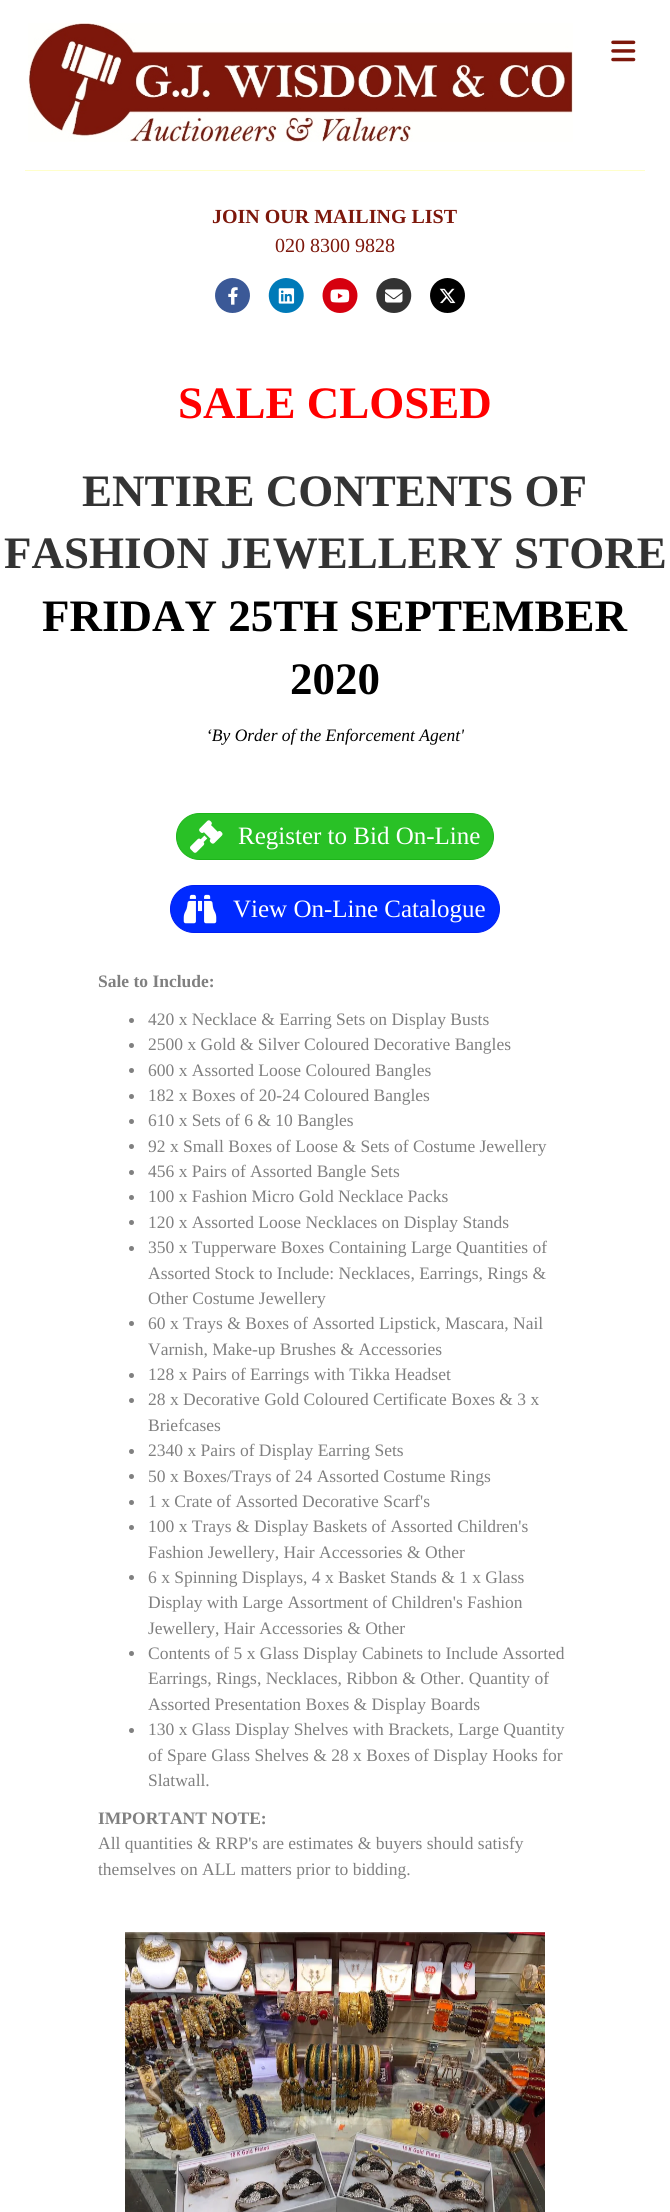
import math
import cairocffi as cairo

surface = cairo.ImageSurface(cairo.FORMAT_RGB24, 670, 2212)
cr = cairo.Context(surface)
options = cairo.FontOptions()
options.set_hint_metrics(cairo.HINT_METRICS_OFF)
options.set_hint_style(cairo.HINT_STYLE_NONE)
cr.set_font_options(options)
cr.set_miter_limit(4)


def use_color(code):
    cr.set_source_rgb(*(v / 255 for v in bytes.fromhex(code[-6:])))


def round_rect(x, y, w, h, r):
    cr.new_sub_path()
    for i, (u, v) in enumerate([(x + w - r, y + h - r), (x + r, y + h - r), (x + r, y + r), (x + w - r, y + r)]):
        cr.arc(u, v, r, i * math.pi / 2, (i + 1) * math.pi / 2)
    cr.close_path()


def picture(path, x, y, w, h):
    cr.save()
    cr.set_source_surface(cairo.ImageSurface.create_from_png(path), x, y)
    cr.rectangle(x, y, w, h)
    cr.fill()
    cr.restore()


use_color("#ffffff")
cr.paint()
picture("img1.png", 611, 40, 25, 22)
picture("img2.png", 28, 23, 545, 119)
use_color("#ffffca")
cr.rectangle(25, 170, 620, 1)
cr.fill()
cr.select_font_face("Liberation Serif", cairo.FONT_SLANT_NORMAL, cairo.FONT_WEIGHT_BOLD)
cr.set_font_size(20)
use_color("#7d170b")
cr.move_to(212, 223)
cr.show_text("JOIN OUR MAILING LIST")
cr.select_font_face("Liberation Serif")
cr.move_to(275, 252)
cr.show_text("020 8300 9828")
use_color("#3b5997")
cr.new_path()
cr.move_to(232.5, 313)
cr.curve_to(249, 313, 256.5, 292, 243, 281.5)
cr.curve_to(240, 279.5, 236.5, 278, 232.5, 278)
cr.curve_to(228.5, 278, 225, 279.5, 222, 281.5)
cr.curve_to(208.5, 292, 216, 313, 232.5, 313)
cr.close_path()
cr.fill()
picture("img3.png", 228, 287, 10, 18)
use_color("#007ab8")
cr.new_path()
cr.move_to(286, 313)
cr.curve_to(303, 313, 310, 292, 297, 281.5)
cr.curve_to(294, 279.5, 290, 278, 286, 278)
cr.curve_to(282.5, 278, 278.5, 279.5, 275.5, 281.5)
cr.curve_to(262.5, 292, 269.5, 313, 286, 313)
cr.close_path()
cr.fill()
picture("img4.png", 278, 288, 17, 16)
use_color("#d6000f")
cr.new_path()
cr.move_to(340, 313)
cr.curve_to(356.5, 313, 364, 292, 350.5, 281.5)
cr.curve_to(347.5, 279.5, 344, 278, 340, 278)
cr.curve_to(336, 278, 332.5, 279.5, 329.5, 281.5)
cr.curve_to(316, 292, 323.5, 313, 340, 313)
cr.close_path()
cr.fill()
picture("img5.png", 330, 289, 20, 14)
use_color("#333333")
cr.new_path()
cr.move_to(394, 313)
cr.curve_to(410.5, 313, 417.5, 292, 404.5, 281.5)
cr.curve_to(401.5, 279.5, 397.5, 278, 394, 278)
cr.curve_to(390, 278, 386, 279.5, 383, 281.5)
cr.curve_to(370, 292, 377, 313, 394, 313)
cr.close_path()
cr.fill()
picture("img6.png", 385, 289, 18, 14)
use_color("#000000")
cr.new_path()
cr.move_to(447.5, 313)
cr.curve_to(464, 313, 471.5, 292, 458, 281.5)
cr.curve_to(455, 279.5, 451.5, 278, 447.5, 278)
cr.curve_to(443.5, 278, 440, 279.5, 437, 281.5)
cr.curve_to(423.5, 292, 431, 313, 447.5, 313)
cr.close_path()
cr.fill()
picture("img7.png", 439, 288, 17, 16)
cr.select_font_face("Liberation Serif", cairo.FONT_SLANT_NORMAL, cairo.FONT_WEIGHT_BOLD)
cr.set_font_size(45)
use_color("#ff0000")
cr.move_to(178, 418)
cr.show_text("SALE CLOSED")
use_color("#333333")
cr.move_to(82, 506)
cr.show_text("ENTIRE CONTENTS OF")
cr.move_to(4, 568)
cr.show_text("FASHION JEWELLERY STORE")
use_color("#000000")
cr.move_to(42, 631)
cr.show_text("FRIDAY 25TH SEPTEMBER")
cr.move_to(290, 694)
cr.show_text("2020")
cr.select_font_face("Liberation Serif", cairo.FONT_SLANT_ITALIC)
cr.set_font_size(17.5)
cr.move_to(206, 741)
cr.show_text("‘By Order of the Enforcement Agent'")
use_color("#29c126")
round_rect(176.5, 813.5, 317, 46, 23)
cr.fill_preserve()
use_color("#1db51a")
cr.set_line_width(1)
cr.stroke()
picture("img8.png", 190, 820, 33, 33)
cr.select_font_face("Liberation Serif")
cr.set_font_size(25)
use_color("#ffffff")
cr.move_to(238, 844)
cr.show_text("Register to Bid On-Line")
use_color("#002aff")
round_rect(170.5, 885.5, 329, 47, 23.5)
cr.fill_preserve()
use_color("#001ef3")
cr.stroke()
picture("img9.png", 183, 894, 34, 30)
use_color("#ffffff")
cr.move_to(233, 917)
cr.show_text("View On-Line Catalogue")
cr.select_font_face("Liberation Serif", cairo.FONT_SLANT_NORMAL, cairo.FONT_WEIGHT_BOLD)
cr.set_font_size(17.5)
use_color("#808080")
cr.move_to(98, 987)
cr.show_text("Sale to Include:")
cr.new_path()
cr.arc(131.5, 1020.5, 2.5, 0, 2 * math.pi)
cr.fill()
cr.select_font_face("Liberation Serif")
cr.move_to(148, 1025)
cr.show_text("420 x Necklace & Earring Sets on Display Busts")
cr.new_path()
cr.arc(131.5, 1045.5, 2.5, 0, 2 * math.pi)
cr.fill()
cr.move_to(148, 1050)
cr.show_text("2500 x Gold & Silver Coloured Decorative Bangles")
cr.new_path()
cr.arc(131.5, 1070.5, 2.5, 0, 2 * math.pi)
cr.fill()
cr.move_to(148, 1076)
cr.show_text("600 x Assorted Loose Coloured Bangles")
cr.new_path()
cr.arc(131.5, 1096.5, 2.5, 0, 2 * math.pi)
cr.fill()
cr.move_to(148, 1101)
cr.show_text("182 x Boxes of 20-24 Coloured Bangles")
cr.new_path()
cr.arc(131.5, 1121.5, 2.5, 0, 2 * math.pi)
cr.fill()
cr.move_to(148, 1126)
cr.show_text("610 x Sets of 6 & 10 Bangles")
cr.new_path()
cr.arc(131.5, 1146.5, 2.5, 0, 2 * math.pi)
cr.fill()
cr.move_to(148, 1152)
cr.show_text("92 x Small Boxes of Loose & Sets of Costume Jewellery")
cr.new_path()
cr.arc(131.5, 1172.5, 2.5, 0, 2 * math.pi)
cr.fill()
cr.move_to(148, 1177)
cr.show_text("456 x Pairs of Assorted Bangle Sets")
cr.new_path()
cr.arc(131.5, 1197.5, 2.5, 0, 2 * math.pi)
cr.fill()
cr.move_to(148, 1202)
cr.show_text("100 x Fashion Micro Gold Necklace Packs")
cr.new_path()
cr.arc(131.5, 1222.5, 2.5, 0, 2 * math.pi)
cr.fill()
cr.move_to(148, 1228)
cr.show_text("120 x Assorted Loose Necklaces on Display Stands")
cr.new_path()
cr.arc(131.5, 1248.5, 2.5, 0, 2 * math.pi)
cr.fill()
cr.move_to(148, 1253)
cr.show_text("350 x Tupperware Boxes Containing Large Quantities of")
cr.move_to(148, 1279)
cr.show_text("Assorted Stock to Include: Necklaces, Earrings, Rings &")
cr.move_to(148, 1304)
cr.show_text("Other Costume Jewellery")
cr.new_path()
cr.arc(131.5, 1323.5, 2.5, 0, 2 * math.pi)
cr.fill()
cr.move_to(148, 1329)
cr.show_text("60 x Trays & Boxes of Assorted Lipstick, Mascara, Nail")
cr.move_to(148, 1355)
cr.show_text("Varnish, Make-up Brushes & Accessories")
cr.new_path()
cr.arc(131.5, 1375.5, 2.5, 0, 2 * math.pi)
cr.fill()
cr.move_to(148, 1380)
cr.show_text("128 x Pairs of Earrings with Tikka Headset")
cr.new_path()
cr.arc(131.5, 1400.5, 2.5, 0, 2 * math.pi)
cr.fill()
cr.move_to(148, 1405)
cr.show_text("28 x Decorative Gold Coloured Certificate Boxes & 3 x")
cr.move_to(148, 1431)
cr.show_text("Briefcases")
cr.new_path()
cr.arc(131.5, 1451.5, 2.5, 0, 2 * math.pi)
cr.fill()
cr.move_to(148, 1456)
cr.show_text("2340 x Pairs of Display Earring Sets")
cr.new_path()
cr.arc(131.5, 1476.5, 2.5, 0, 2 * math.pi)
cr.fill()
cr.move_to(148, 1482)
cr.show_text("50 x Boxes/Trays of 24 Assorted Costume Rings")
cr.new_path()
cr.arc(131.5, 1502.5, 2.5, 0, 2 * math.pi)
cr.fill()
cr.move_to(148, 1507)
cr.show_text("1 x Crate of Assorted Decorative Scarf's")
cr.new_path()
cr.arc(131.5, 1527.5, 2.5, 0, 2 * math.pi)
cr.fill()
cr.move_to(148, 1532)
cr.show_text("100 x Trays & Display Baskets of Assorted Children's")
cr.move_to(148, 1558)
cr.show_text("Fashion Jewellery, Hair Accessories & Other")
cr.new_path()
cr.arc(131.5, 1577.5, 2.5, 0, 2 * math.pi)
cr.fill()
cr.move_to(148, 1583)
cr.show_text("6 x Spinning Displays, 4 x Basket Stands & 1 x Glass")
cr.move_to(148, 1608)
cr.show_text("Display with Large Assortment of Children's Fashion")
cr.move_to(148, 1634)
cr.show_text("Jewellery, Hair Accessories & Other")
cr.new_path()
cr.arc(131.5, 1653.5, 2.5, 0, 2 * math.pi)
cr.fill()
cr.move_to(148, 1659)
cr.show_text("Contents of 5 x Glass Display Cabinets to Include Assorted")
cr.move_to(148, 1684)
cr.show_text("Earrings, Rings, Necklaces, Ribbon & Other. Quantity of")
cr.move_to(148, 1710)
cr.show_text("Assorted Presentation Boxes & Display Boards")
cr.new_path()
cr.arc(131.5, 1730.5, 2.5, 0, 2 * math.pi)
cr.fill()
cr.move_to(148, 1735)
cr.show_text("130 x Glass Display Shelves with Brackets, Large Quantity")
cr.move_to(148, 1761)
cr.show_text("of Spare Glass Shelves & 28 x Boxes of Display Hooks for")
cr.move_to(148, 1786)
cr.show_text("Slatwall.")
cr.select_font_face("Liberation Serif", cairo.FONT_SLANT_NORMAL, cairo.FONT_WEIGHT_BOLD)
cr.move_to(98, 1824)
cr.show_text("IMPORTANT NOTE:")
cr.select_font_face("Liberation Serif")
cr.move_to(98, 1849)
cr.show_text("All quantities & RRP's are estimates & buyers should satisfy")
cr.move_to(98, 1875)
cr.show_text("themselves on ALL matters prior to bidding.")
picture("img10.png", 125, 1932, 420, 280)
picture("img11.png", 148, 2055, 50, 69)
picture("img12.png", 472, 2055, 51, 69)
surface.write_to_png("result.png")
